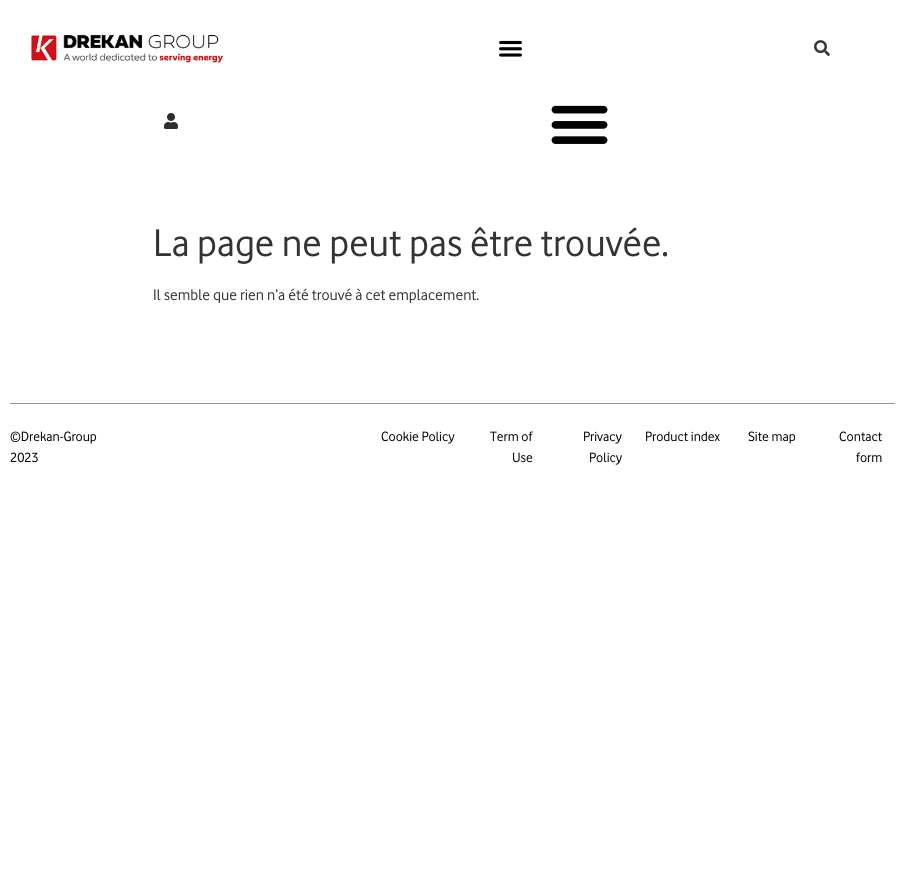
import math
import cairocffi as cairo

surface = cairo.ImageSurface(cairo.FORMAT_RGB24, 905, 884)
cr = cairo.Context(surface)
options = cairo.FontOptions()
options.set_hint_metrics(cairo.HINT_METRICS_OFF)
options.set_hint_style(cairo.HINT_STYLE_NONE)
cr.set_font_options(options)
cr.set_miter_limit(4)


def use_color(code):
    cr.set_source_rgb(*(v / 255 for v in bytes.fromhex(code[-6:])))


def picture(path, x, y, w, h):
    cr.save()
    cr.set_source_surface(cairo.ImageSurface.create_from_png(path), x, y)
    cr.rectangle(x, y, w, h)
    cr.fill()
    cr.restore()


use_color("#ffffff")
cr.paint()
picture("img1.png", 31, 34, 192, 29)
picture("img2.png", 499, 40, 23, 17)
picture("img3.png", 814, 40, 16, 16)
picture("img4.png", 164, 113, 14, 16)
picture("img5.png", 551, 105, 57, 39)
cr.select_font_face("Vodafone")
cr.set_font_size(40)
use_color("#333333")
cr.move_to(153, 256)
cr.show_text("La page ne peut pas être trouvée.")
cr.set_font_size(16)
cr.move_to(153, 300)
cr.show_text("Il semble que rien n’a été trouvé à cet emplacement.")
use_color("#989797")
cr.rectangle(10, 403, 885, 1)
cr.fill()
cr.set_font_size(14)
use_color("#000000")
cr.move_to(10, 441)
cr.show_text("©Drekan-Group")
cr.move_to(10, 462)
cr.show_text("2023")
cr.move_to(381, 441)
cr.show_text("Cookie Policy")
cr.move_to(490, 441)
cr.show_text("Term of")
cr.move_to(512, 462)
cr.show_text("Use")
cr.move_to(583, 441)
cr.show_text("Privacy")
cr.move_to(589, 462)
cr.show_text("Policy")
cr.move_to(645, 441)
cr.show_text("Product index")
cr.move_to(748, 441)
cr.show_text("Site map")
cr.move_to(839, 441)
cr.show_text("Contact")
cr.move_to(856, 462)
cr.show_text("form")
surface.write_to_png("result.png")
